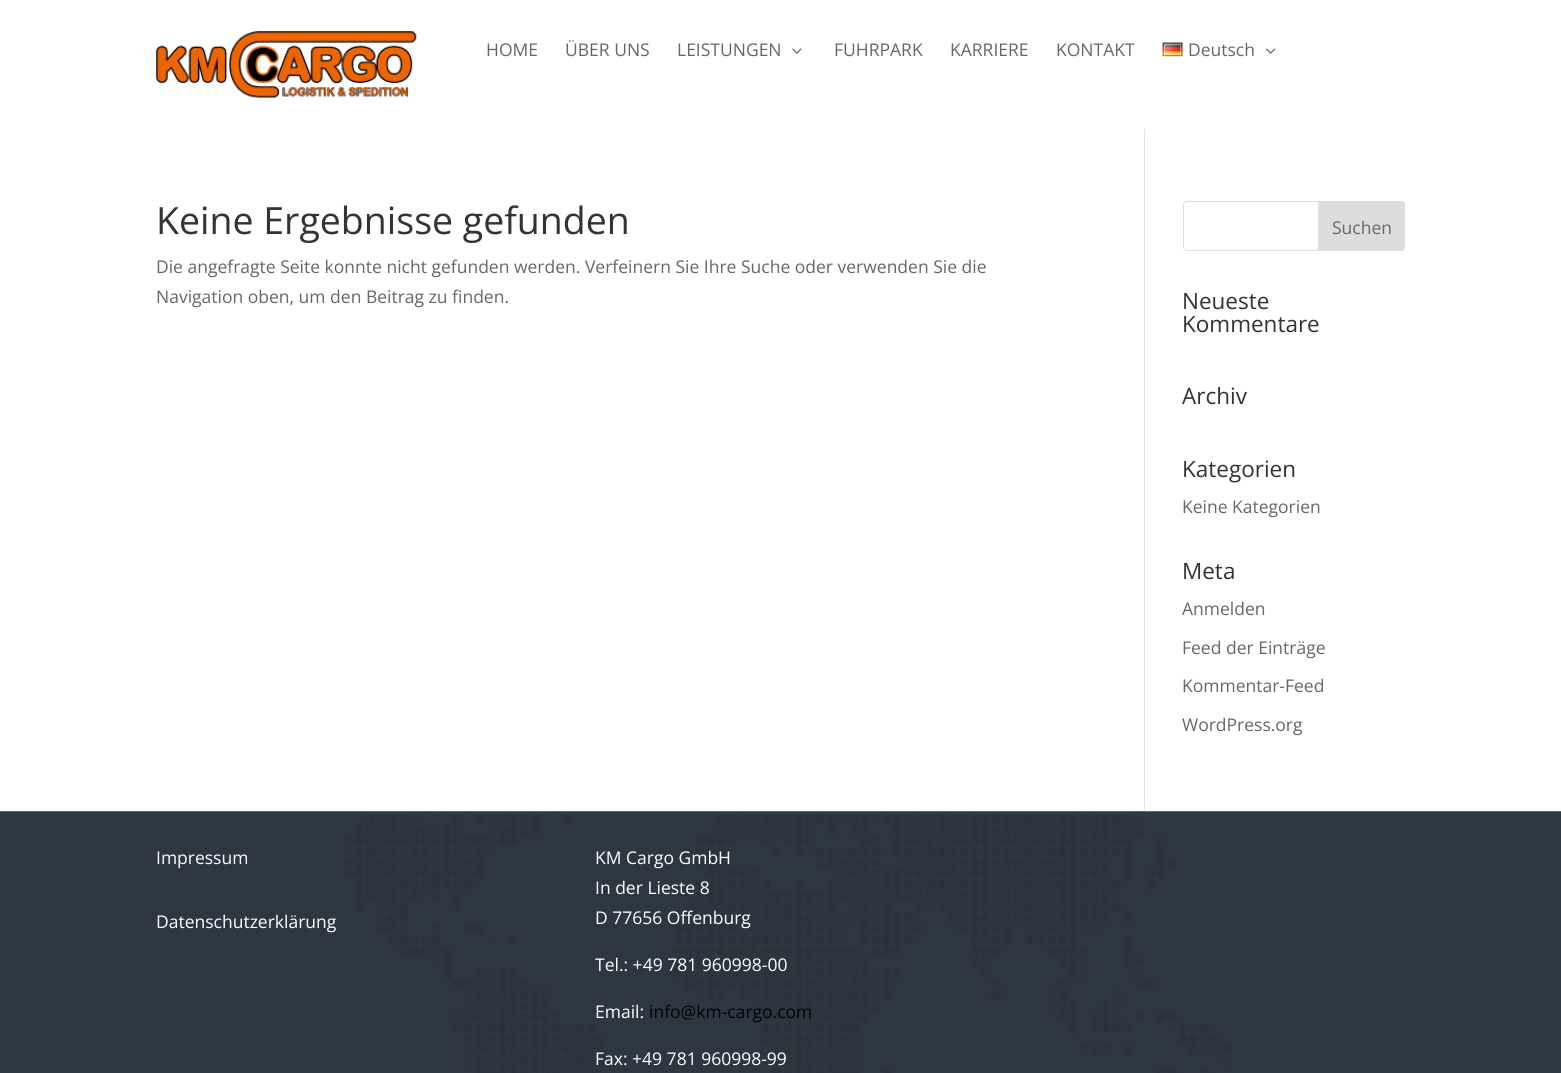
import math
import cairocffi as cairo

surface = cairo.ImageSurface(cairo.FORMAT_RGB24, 1561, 1073)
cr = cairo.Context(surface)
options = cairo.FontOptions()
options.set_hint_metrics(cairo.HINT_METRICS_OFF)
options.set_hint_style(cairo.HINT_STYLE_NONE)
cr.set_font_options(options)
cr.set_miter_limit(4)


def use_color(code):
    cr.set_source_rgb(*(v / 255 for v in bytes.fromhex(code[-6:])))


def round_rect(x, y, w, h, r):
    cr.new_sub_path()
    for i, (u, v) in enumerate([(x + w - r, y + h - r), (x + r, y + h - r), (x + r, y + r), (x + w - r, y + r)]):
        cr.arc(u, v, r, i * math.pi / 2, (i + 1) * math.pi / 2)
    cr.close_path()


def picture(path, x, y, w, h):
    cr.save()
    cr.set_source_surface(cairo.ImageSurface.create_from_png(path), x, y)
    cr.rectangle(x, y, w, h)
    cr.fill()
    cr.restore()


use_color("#ffffff")
cr.paint()
picture("img1.png", 156, 31, 261, 67)
cr.select_font_face("Open Sans")
cr.set_font_size(17.5)
use_color("#666666")
cr.move_to(486, 56)
cr.show_text("HOME")
cr.move_to(565, 56)
cr.show_text("ÜBER UNS")
cr.move_to(677, 56)
cr.show_text("LEISTUNGEN")
picture("img2.png", 792, 48, 10, 6)
cr.move_to(834, 56)
cr.show_text("FUHRPARK")
cr.move_to(950, 56)
cr.show_text("KARRIERE")
cr.move_to(1056, 56)
cr.show_text("KONTAKT")
picture("img3.png", 1162, 42, 21, 15)
cr.move_to(1188, 56)
cr.show_text("Deutsch")
picture("img4.png", 1266, 48, 10, 6)
use_color("#e2e2e2")
cr.rectangle(1144, 129, 1, 682)
cr.fill()
cr.set_font_size(37.5)
use_color("#333333")
cr.move_to(156, 234)
cr.show_text("Keine Ergebnisse gefunden")
cr.set_font_size(17.5)
use_color("#666666")
cr.move_to(156, 273)
cr.show_text("Die angefragte Seite konnte nicht gefunden werden. Verfeinern Sie Ihre Suche oder verwenden Sie die")
cr.move_to(156, 303)
cr.show_text("Navigation oben, um den Beitrag zu finden.")
round_rect(1183.5, 201.5, 221, 49, 3.5)
use_color("#dddddd")
cr.set_line_width(1)
cr.stroke()
cr.new_path()
cr.move_to(1318.5, 201.5)
cr.line_to(1401, 201.5)
cr.curve_to(1403, 201.5, 1404.5, 203, 1404.5, 205)
cr.line_to(1404.5, 247)
cr.curve_to(1404.5, 249, 1403, 250.5, 1401, 250.5)
cr.line_to(1318.5, 250.5)
cr.close_path()
cr.fill_preserve()
cr.stroke()
use_color("#666666")
cr.move_to(1332, 234)
cr.show_text("Suchen")
cr.set_font_size(22.5)
use_color("#333333")
cr.move_to(1182, 309)
cr.show_text("Neueste")
cr.move_to(1182, 332)
cr.show_text("Kommentare")
cr.move_to(1182, 404)
cr.show_text("Archiv")
cr.move_to(1182, 477)
cr.show_text("Kategorien")
cr.set_font_size(17.5)
use_color("#666666")
cr.move_to(1182, 513)
cr.show_text("Keine Kategorien")
cr.set_font_size(22.5)
use_color("#333333")
cr.move_to(1182, 579)
cr.show_text("Meta")
cr.set_font_size(17.5)
use_color("#666666")
cr.move_to(1182, 615)
cr.show_text("Anmelden")
cr.move_to(1182, 654)
cr.show_text("Feed der Einträge")
cr.move_to(1182, 692)
cr.show_text("Kommentar-Feed")
cr.move_to(1182, 731)
cr.show_text("WordPress.org")
picture("img5.png", 0, 811, 1561, 262)
use_color("#ffffff")
cr.move_to(156, 864)
cr.show_text("Impressum")
cr.move_to(156, 928)
cr.show_text("Datenschutzerklärung")
cr.move_to(595, 864)
cr.show_text("KM Cargo GmbH")
cr.move_to(595, 894)
cr.show_text("In der Lieste 8")
cr.move_to(595, 924)
cr.show_text("D 77656 Offenburg")
cr.move_to(595, 971)
cr.show_text("Tel.: +49 781 960998-00")
cr.move_to(595, 1018)
cr.show_text("Email:")
use_color("#020202")
cr.move_to(649, 1018)
cr.show_text("info@km-cargo.com")
use_color("#ffffff")
cr.move_to(595, 1065)
cr.show_text("Fax: +49 781 960998-99")
surface.write_to_png("result.png")
